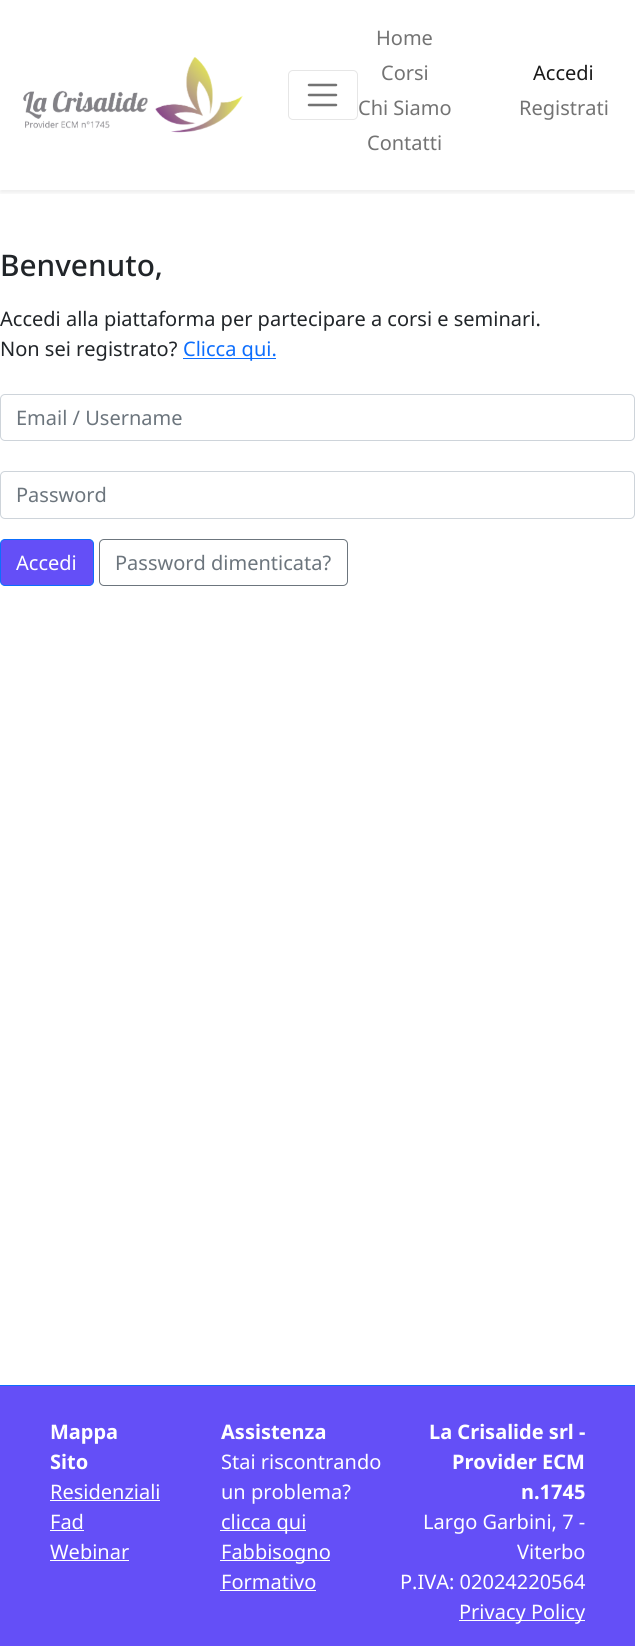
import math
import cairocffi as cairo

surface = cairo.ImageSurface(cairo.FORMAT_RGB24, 635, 1646)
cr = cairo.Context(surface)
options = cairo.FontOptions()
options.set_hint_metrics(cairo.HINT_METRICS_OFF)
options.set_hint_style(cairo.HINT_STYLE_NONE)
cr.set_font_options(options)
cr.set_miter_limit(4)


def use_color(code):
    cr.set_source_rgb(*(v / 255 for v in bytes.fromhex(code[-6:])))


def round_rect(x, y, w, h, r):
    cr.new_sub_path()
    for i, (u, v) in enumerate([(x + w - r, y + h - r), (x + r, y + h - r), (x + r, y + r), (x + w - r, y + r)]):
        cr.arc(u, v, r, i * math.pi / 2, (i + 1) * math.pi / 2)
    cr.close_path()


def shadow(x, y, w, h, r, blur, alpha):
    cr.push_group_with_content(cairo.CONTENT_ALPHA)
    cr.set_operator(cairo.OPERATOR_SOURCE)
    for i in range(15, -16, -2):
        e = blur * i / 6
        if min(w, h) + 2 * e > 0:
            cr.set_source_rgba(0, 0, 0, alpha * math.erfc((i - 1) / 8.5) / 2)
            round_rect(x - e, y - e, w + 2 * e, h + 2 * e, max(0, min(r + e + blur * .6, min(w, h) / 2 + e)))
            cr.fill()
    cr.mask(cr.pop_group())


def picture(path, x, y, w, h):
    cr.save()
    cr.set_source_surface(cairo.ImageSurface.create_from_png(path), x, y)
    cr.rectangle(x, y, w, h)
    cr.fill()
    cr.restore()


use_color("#ffffff")
cr.paint()
cr.save()
cr.rectangle(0, 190, 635, 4)
cr.clip()
use_color("#000000")
shadow(0, 3, 635, 190, 0, 2.5, 0.07)
cr.restore()
picture("img1.png", 23, 57, 220, 76)
round_rect(288.5, 70.5, 69, 49, 4.5)
use_color("#e6e6e6")
cr.set_line_width(1)
cr.stroke()
cr.new_path()
cr.move_to(309, 85)
cr.line_to(336, 85)
cr.move_to(309, 95)
cr.line_to(336, 95)
cr.move_to(309, 105)
cr.line_to(336, 105)
use_color("#737373")
cr.set_line_width(2.5)
cr.set_line_cap(cairo.LINE_CAP_ROUND)
cr.stroke()
cr.select_font_face("Noto Sans")
cr.set_font_size(20)
cr.move_to(376, 45)
cr.show_text("Home")
cr.move_to(381, 80)
cr.show_text("Corsi")
cr.move_to(358, 115)
cr.show_text("Chi Siamo")
cr.move_to(367, 150)
cr.show_text("Contatti")
use_color("#1a1a1a")
cr.move_to(533, 80)
cr.show_text("Accedi")
use_color("#737373")
cr.move_to(519, 115)
cr.show_text("Registrati")
cr.select_font_face("Noto Sans Medium")
cr.set_font_size(29.75)
use_color("#212529")
cr.move_to(0, 276)
cr.show_text("Benvenuto,")
cr.select_font_face("Noto Sans")
cr.set_font_size(20)
cr.move_to(0, 326)
cr.show_text("Accedi alla piattaforma per partecipare a corsi e seminari.")
cr.move_to(0, 356)
cr.show_text("Non sei registrato?")
use_color("#0d6efd")
cr.rectangle(183, 358, 93, 1)
cr.fill()
cr.move_to(183, 356)
cr.show_text("Clicca qui.")
round_rect(0.5, 394.5, 634, 46, 4.5)
use_color("#ced4da")
cr.set_line_width(1)
cr.set_line_cap(cairo.LINE_CAP_BUTT)
cr.stroke()
use_color("#6c757d")
cr.move_to(16, 425)
cr.show_text("Email / Username")
round_rect(0.5, 471.5, 634, 47, 4.5)
use_color("#ced4da")
cr.stroke()
use_color("#6c757d")
cr.move_to(16, 502)
cr.show_text("Password")
use_color("#644ff7")
round_rect(0.5, 539.5, 93, 46, 4.5)
cr.fill_preserve()
use_color("#0d6efd")
cr.stroke()
use_color("#ffffff")
cr.move_to(16, 570)
cr.show_text("Accedi")
round_rect(99.5, 539.5, 248, 46, 4.5)
use_color("#6c757d")
cr.stroke()
cr.move_to(115, 570)
cr.show_text("Password dimenticata?")
use_color("#644ff7")
cr.rectangle(0, 1386, 635, 260)
cr.fill()
use_color("#0d6efd")
cr.rectangle(0, 1385, 635, 1)
cr.fill()
cr.select_font_face("Noto Sans", cairo.FONT_SLANT_NORMAL, cairo.FONT_WEIGHT_BOLD)
use_color("#ffffff")
cr.move_to(50, 1439)
cr.show_text("Mappa")
cr.move_to(50, 1469)
cr.show_text("Sito")
cr.select_font_face("Noto Sans")
cr.move_to(50, 1499)
cr.show_text("Residenziali")
cr.rectangle(50, 1500, 110, 1)
cr.fill()
cr.move_to(50, 1529)
cr.show_text("Fad")
cr.rectangle(50, 1530, 34, 1)
cr.fill()
cr.move_to(50, 1559)
cr.show_text("Webinar")
cr.rectangle(50, 1560, 79, 1)
cr.fill()
cr.select_font_face("Noto Sans", cairo.FONT_SLANT_NORMAL, cairo.FONT_WEIGHT_BOLD)
cr.move_to(221, 1439)
cr.show_text("Assistenza")
cr.select_font_face("Noto Sans")
cr.move_to(221, 1469)
cr.show_text("Stai riscontrando")
cr.move_to(221, 1499)
cr.show_text("un problema?")
cr.rectangle(220, 1530, 86, 1)
cr.fill()
cr.move_to(221, 1529)
cr.show_text("clicca qui")
cr.rectangle(220, 1560, 110, 1)
cr.fill()
cr.move_to(221, 1559)
cr.show_text("Fabbisogno")
cr.move_to(221, 1589)
cr.show_text("Formativo")
cr.rectangle(220, 1590, 96, 1)
cr.fill()
cr.select_font_face("Noto Sans", cairo.FONT_SLANT_NORMAL, cairo.FONT_WEIGHT_BOLD)
cr.move_to(429, 1439)
cr.show_text("La Crisalide srl -")
cr.move_to(452, 1469)
cr.show_text("Provider ECM")
cr.move_to(521, 1499)
cr.show_text("n.1745")
cr.select_font_face("Noto Sans")
cr.move_to(423, 1529)
cr.show_text("Largo Garbini, 7 -")
cr.move_to(517, 1559)
cr.show_text("Viterbo")
cr.move_to(400, 1589)
cr.show_text("P.IVA: 02024220564")
cr.rectangle(459, 1620, 126, 1)
cr.fill()
cr.move_to(459, 1619)
cr.show_text("Privacy Policy")
surface.write_to_png("result.png")
